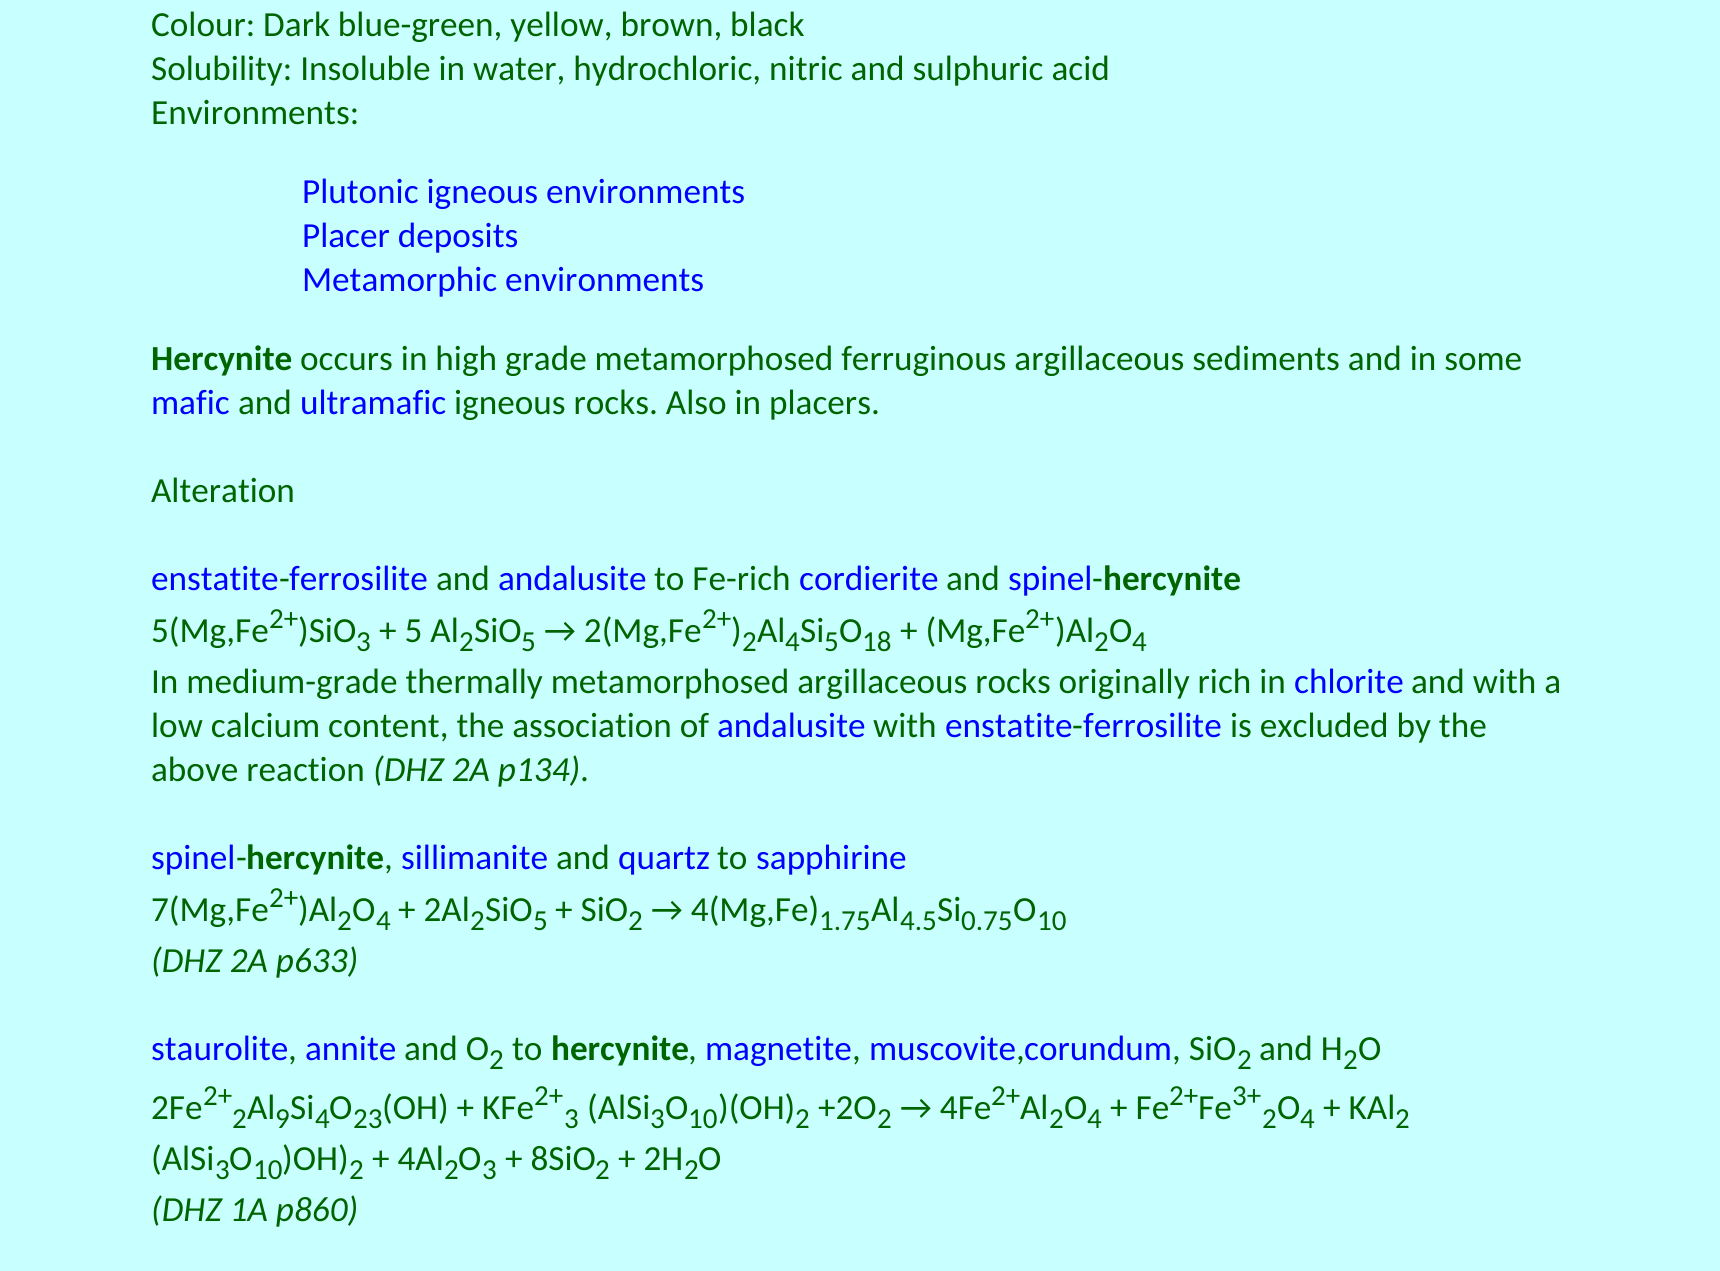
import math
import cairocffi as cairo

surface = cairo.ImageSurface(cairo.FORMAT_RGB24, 1720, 1271)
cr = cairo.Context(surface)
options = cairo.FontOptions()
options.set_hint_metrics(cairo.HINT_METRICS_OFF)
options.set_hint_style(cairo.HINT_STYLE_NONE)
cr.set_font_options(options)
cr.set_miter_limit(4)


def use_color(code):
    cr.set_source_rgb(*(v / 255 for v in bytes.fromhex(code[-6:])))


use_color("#c8ffff")
cr.paint()
cr.select_font_face("Carlito")
cr.set_font_size(35.2)
use_color("#006400")
cr.move_to(151, 36)
cr.show_text("Colour: Dark blue-green, yellow, brown, black")
cr.move_to(151, 80)
cr.show_text("Solubility: Insoluble in water, hydrochloric, nitric and sulphuric acid")
cr.move_to(151, 124)
cr.show_text("Environments:")
use_color("#0000ff")
cr.move_to(302, 203)
cr.show_text("Plutonic igneous environments")
cr.move_to(302, 247)
cr.show_text("Placer deposits")
cr.move_to(302, 291)
cr.show_text("Metamorphic environments")
cr.select_font_face("Carlito", cairo.FONT_SLANT_NORMAL, cairo.FONT_WEIGHT_BOLD)
use_color("#006400")
cr.move_to(151, 370)
cr.show_text("Hercynite")
cr.select_font_face("Carlito")
cr.move_to(300, 370)
cr.show_text("occurs in high grade metamorphosed ferruginous argillaceous sediments and in some")
use_color("#0000ff")
cr.move_to(151, 414)
cr.show_text("mafic")
use_color("#006400")
cr.move_to(238, 414)
cr.show_text("and")
use_color("#0000ff")
cr.move_to(300, 414)
cr.show_text("ultramafic")
use_color("#006400")
cr.move_to(454, 414)
cr.show_text("igneous rocks. Also in placers.")
cr.move_to(151, 502)
cr.show_text("Alteration")
use_color("#0000ff")
cr.move_to(151, 590)
cr.show_text("enstatite")
use_color("#006400")
cr.move_to(279, 590)
cr.show_text("-")
use_color("#0000ff")
cr.move_to(289, 590)
cr.show_text("ferrosilite")
use_color("#006400")
cr.move_to(436, 590)
cr.show_text("and")
use_color("#0000ff")
cr.move_to(498, 590)
cr.show_text("andalusite")
use_color("#006400")
cr.move_to(654, 590)
cr.show_text("to Fe-rich")
use_color("#0000ff")
cr.move_to(799, 590)
cr.show_text("cordierite")
use_color("#006400")
cr.move_to(946, 590)
cr.show_text("and")
use_color("#0000ff")
cr.move_to(1008, 590)
cr.show_text("spinel")
use_color("#006400")
cr.move_to(1092, 590)
cr.show_text("-")
cr.select_font_face("Carlito", cairo.FONT_SLANT_NORMAL, cairo.FONT_WEIGHT_BOLD)
cr.move_to(1103, 590)
cr.show_text("hercynite")
cr.select_font_face("Carlito")
cr.move_to(151, 642)
cr.show_text("5(Mg,Fe")
cr.set_font_size(29)
cr.move_to(269, 628)
cr.show_text("2+")
cr.set_font_size(35.2)
cr.move_to(298, 642)
cr.show_text(")SiO")
cr.set_font_size(29)
cr.move_to(356, 651)
cr.show_text("3")
cr.set_font_size(35.2)
cr.move_to(379, 642)
cr.show_text("+ 5 Al")
cr.set_font_size(29)
cr.move_to(459, 651)
cr.show_text("2")
cr.set_font_size(35.2)
cr.move_to(474, 642)
cr.show_text("SiO")
cr.set_font_size(29)
cr.move_to(521, 651)
cr.show_text("5")
cr.set_font_size(35.2)
cr.move_to(544, 642)
cr.show_text("→ 2(Mg,Fe")
cr.set_font_size(29)
cr.move_to(702, 628)
cr.show_text("2+")
cr.set_font_size(35.2)
cr.move_to(731, 642)
cr.show_text(")")
cr.set_font_size(29)
cr.move_to(742, 651)
cr.show_text("2")
cr.set_font_size(35.2)
cr.move_to(757, 642)
cr.show_text("Al")
cr.set_font_size(29)
cr.move_to(785, 651)
cr.show_text("4")
cr.set_font_size(35.2)
cr.move_to(800, 642)
cr.show_text("Si")
cr.set_font_size(29)
cr.move_to(824, 651)
cr.show_text("5")
cr.set_font_size(35.2)
cr.move_to(839, 642)
cr.show_text("O")
cr.set_font_size(29)
cr.move_to(862, 651)
cr.show_text("18")
cr.set_font_size(35.2)
cr.move_to(900, 642)
cr.show_text("+ (Mg,Fe")
cr.set_font_size(29)
cr.move_to(1025, 628)
cr.show_text("2+")
cr.set_font_size(35.2)
cr.move_to(1055, 642)
cr.show_text(")Al")
cr.set_font_size(29)
cr.move_to(1094, 651)
cr.show_text("2")
cr.set_font_size(35.2)
cr.move_to(1109, 642)
cr.show_text("O")
cr.set_font_size(29)
cr.move_to(1132, 651)
cr.show_text("4")
cr.set_font_size(35.2)
cr.move_to(151, 693)
cr.show_text("In medium-grade thermally metamorphosed argillaceous rocks originally rich in")
use_color("#0000ff")
cr.move_to(1294, 693)
cr.show_text("chlorite")
use_color("#006400")
cr.move_to(1411, 693)
cr.show_text("and with a")
cr.move_to(151, 737)
cr.show_text("low calcium content, the association of")
use_color("#0000ff")
cr.move_to(717, 737)
cr.show_text("andalusite")
use_color("#006400")
cr.move_to(873, 737)
cr.show_text("with")
use_color("#0000ff")
cr.move_to(945, 737)
cr.show_text("enstatite")
use_color("#006400")
cr.move_to(1072, 737)
cr.show_text("-")
use_color("#0000ff")
cr.move_to(1083, 737)
cr.show_text("ferrosilite")
use_color("#006400")
cr.move_to(1230, 737)
cr.show_text("is excluded by the")
cr.move_to(151, 781)
cr.show_text("above reaction")
cr.select_font_face("Carlito", cairo.FONT_SLANT_ITALIC)
cr.move_to(373, 781)
cr.show_text("(DHZ 2A p134)")
cr.select_font_face("Carlito")
cr.move_to(580, 781)
cr.show_text(".")
use_color("#0000ff")
cr.move_to(151, 869)
cr.show_text("spinel")
use_color("#006400")
cr.move_to(236, 869)
cr.show_text("-")
cr.select_font_face("Carlito", cairo.FONT_SLANT_NORMAL, cairo.FONT_WEIGHT_BOLD)
cr.move_to(246, 869)
cr.show_text("hercynite")
cr.select_font_face("Carlito")
use_color("#0000ff")
cr.move_to(401, 869)
cr.show_text("sillimanite")
use_color("#006400")
cr.move_to(556, 869)
cr.show_text("and")
use_color("#0000ff")
cr.move_to(618, 869)
cr.show_text("quartz")
use_color("#006400")
cr.move_to(717, 869)
cr.show_text("to")
use_color("#0000ff")
cr.move_to(756, 869)
cr.show_text("sapphirine")
use_color("#006400")
cr.move_to(384, 869)
cr.show_text(",")
cr.move_to(151, 921)
cr.show_text("7(Mg,Fe")
cr.set_font_size(29)
cr.move_to(269, 907)
cr.show_text("2+")
cr.set_font_size(35.2)
cr.move_to(298, 921)
cr.show_text(")Al")
cr.set_font_size(29)
cr.move_to(337, 930)
cr.show_text("2")
cr.set_font_size(35.2)
cr.move_to(352, 921)
cr.show_text("O")
cr.set_font_size(29)
cr.move_to(376, 930)
cr.show_text("4")
cr.set_font_size(35.2)
cr.move_to(398, 921)
cr.show_text("+ 2Al")
cr.set_font_size(29)
cr.move_to(470, 930)
cr.show_text("2")
cr.set_font_size(35.2)
cr.move_to(485, 921)
cr.show_text("SiO")
cr.set_font_size(29)
cr.move_to(533, 930)
cr.show_text("5")
cr.set_font_size(35.2)
cr.move_to(555, 921)
cr.show_text("+ SiO")
cr.set_font_size(29)
cr.move_to(628, 930)
cr.show_text("2")
cr.set_font_size(35.2)
cr.move_to(651, 921)
cr.show_text("→ 4(Mg,Fe)")
cr.set_font_size(29)
cr.move_to(819, 930)
cr.show_text("1.75")
cr.set_font_size(35.2)
cr.move_to(871, 921)
cr.show_text("Al")
cr.set_font_size(29)
cr.move_to(900, 930)
cr.show_text("4.5")
cr.set_font_size(35.2)
cr.move_to(937, 921)
cr.show_text("Si")
cr.set_font_size(29)
cr.move_to(961, 930)
cr.show_text("0.75")
cr.set_font_size(35.2)
cr.move_to(1013, 921)
cr.show_text("O")
cr.set_font_size(29)
cr.move_to(1037, 930)
cr.show_text("10")
cr.select_font_face("Carlito", cairo.FONT_SLANT_ITALIC)
cr.set_font_size(35.2)
cr.move_to(151, 972)
cr.show_text("(DHZ 2A p633)")
cr.select_font_face("Carlito")
use_color("#0000ff")
cr.move_to(151, 1060)
cr.show_text("staurolite")
use_color("#006400")
cr.move_to(288, 1060)
cr.show_text(",")
use_color("#0000ff")
cr.move_to(305, 1060)
cr.show_text("annite")
use_color("#006400")
cr.move_to(404, 1060)
cr.show_text("and O")
cr.set_font_size(29)
cr.move_to(489, 1069)
cr.show_text("2")
cr.set_font_size(35.2)
cr.move_to(512, 1060)
cr.show_text("to")
cr.select_font_face("Carlito", cairo.FONT_SLANT_NORMAL, cairo.FONT_WEIGHT_BOLD)
cr.move_to(551, 1060)
cr.show_text("hercynite")
cr.select_font_face("Carlito")
cr.move_to(688, 1060)
cr.show_text(",")
use_color("#0000ff")
cr.move_to(705, 1060)
cr.show_text("magnetite")
use_color("#006400")
cr.move_to(852, 1060)
cr.show_text(",")
use_color("#0000ff")
cr.move_to(869, 1060)
cr.show_text("muscovite")
use_color("#006400")
cr.move_to(1016, 1060)
cr.show_text(",")
use_color("#0000ff")
cr.move_to(1024, 1060)
cr.show_text("corundum")
use_color("#006400")
cr.move_to(1172, 1060)
cr.show_text(", SiO")
cr.set_font_size(29)
cr.move_to(1237, 1069)
cr.show_text("2")
cr.set_font_size(35.2)
cr.move_to(1259, 1060)
cr.show_text("and H")
cr.set_font_size(29)
cr.move_to(1343, 1069)
cr.show_text("2")
cr.set_font_size(35.2)
cr.move_to(1358, 1060)
cr.show_text("O")
cr.move_to(151, 1119)
cr.show_text("2Fe")
cr.set_font_size(29)
cr.move_to(203, 1105)
cr.show_text("2+")
cr.move_to(232, 1128)
cr.show_text("2")
cr.set_font_size(35.2)
cr.move_to(247, 1119)
cr.show_text("Al")
cr.set_font_size(29)
cr.move_to(275, 1128)
cr.show_text("9")
cr.set_font_size(35.2)
cr.move_to(290, 1119)
cr.show_text("Si")
cr.set_font_size(29)
cr.move_to(315, 1128)
cr.show_text("4")
cr.set_font_size(35.2)
cr.move_to(329, 1119)
cr.show_text("O")
cr.set_font_size(29)
cr.move_to(353, 1128)
cr.show_text("23")
cr.set_font_size(35.2)
cr.move_to(382, 1119)
cr.show_text("(OH) + KFe")
cr.set_font_size(29)
cr.move_to(534, 1105)
cr.show_text("2+")
cr.move_to(564, 1128)
cr.show_text("3")
cr.set_font_size(35.2)
cr.move_to(587, 1119)
cr.show_text("(AlSi")
cr.set_font_size(29)
cr.move_to(650, 1128)
cr.show_text("3")
cr.set_font_size(35.2)
cr.move_to(665, 1119)
cr.show_text("O")
cr.set_font_size(29)
cr.move_to(688, 1128)
cr.show_text("10")
cr.set_font_size(35.2)
cr.move_to(718, 1119)
cr.show_text(")(OH)")
cr.set_font_size(29)
cr.move_to(795, 1128)
cr.show_text("2")
cr.set_font_size(35.2)
cr.move_to(818, 1119)
cr.show_text("+2O")
cr.set_font_size(29)
cr.move_to(877, 1128)
cr.show_text("2")
cr.set_font_size(35.2)
cr.move_to(900, 1119)
cr.show_text("→ 4Fe")
cr.set_font_size(29)
cr.move_to(991, 1105)
cr.show_text("2+")
cr.set_font_size(35.2)
cr.move_to(1020, 1119)
cr.show_text("Al")
cr.set_font_size(29)
cr.move_to(1049, 1128)
cr.show_text("2")
cr.set_font_size(35.2)
cr.move_to(1064, 1119)
cr.show_text("O")
cr.set_font_size(29)
cr.move_to(1087, 1128)
cr.show_text("4")
cr.set_font_size(35.2)
cr.move_to(1110, 1119)
cr.show_text("+ Fe")
cr.set_font_size(29)
cr.move_to(1169, 1105)
cr.show_text("2+")
cr.set_font_size(35.2)
cr.move_to(1198, 1119)
cr.show_text("Fe")
cr.set_font_size(29)
cr.move_to(1232, 1105)
cr.show_text("3+")
cr.move_to(1262, 1128)
cr.show_text("2")
cr.set_font_size(35.2)
cr.move_to(1277, 1119)
cr.show_text("O")
cr.set_font_size(29)
cr.move_to(1300, 1128)
cr.show_text("4")
cr.set_font_size(35.2)
cr.move_to(1323, 1119)
cr.show_text("+ KAl")
cr.set_font_size(29)
cr.move_to(1395, 1128)
cr.show_text("2")
cr.set_font_size(35.2)
cr.move_to(151, 1170)
cr.show_text("(AlSi")
cr.set_font_size(29)
cr.move_to(215, 1179)
cr.show_text("3")
cr.set_font_size(35.2)
cr.move_to(229, 1170)
cr.show_text("O")
cr.set_font_size(29)
cr.move_to(253, 1179)
cr.show_text("10")
cr.set_font_size(35.2)
cr.move_to(282, 1170)
cr.show_text(")OH)")
cr.set_font_size(29)
cr.move_to(349, 1179)
cr.show_text("2")
cr.set_font_size(35.2)
cr.move_to(372, 1170)
cr.show_text("+ 4Al")
cr.set_font_size(29)
cr.move_to(444, 1179)
cr.show_text("2")
cr.set_font_size(35.2)
cr.move_to(458, 1170)
cr.show_text("O")
cr.set_font_size(29)
cr.move_to(482, 1179)
cr.show_text("3")
cr.set_font_size(35.2)
cr.move_to(505, 1170)
cr.show_text("+ 8SiO")
cr.set_font_size(29)
cr.move_to(595, 1179)
cr.show_text("2")
cr.set_font_size(35.2)
cr.move_to(618, 1170)
cr.show_text("+ 2H")
cr.set_font_size(29)
cr.move_to(684, 1179)
cr.show_text("2")
cr.set_font_size(35.2)
cr.move_to(698, 1170)
cr.show_text("O")
cr.select_font_face("Carlito", cairo.FONT_SLANT_ITALIC)
cr.move_to(151, 1221)
cr.show_text("(DHZ 1A p860)")
surface.write_to_png("result.png")
